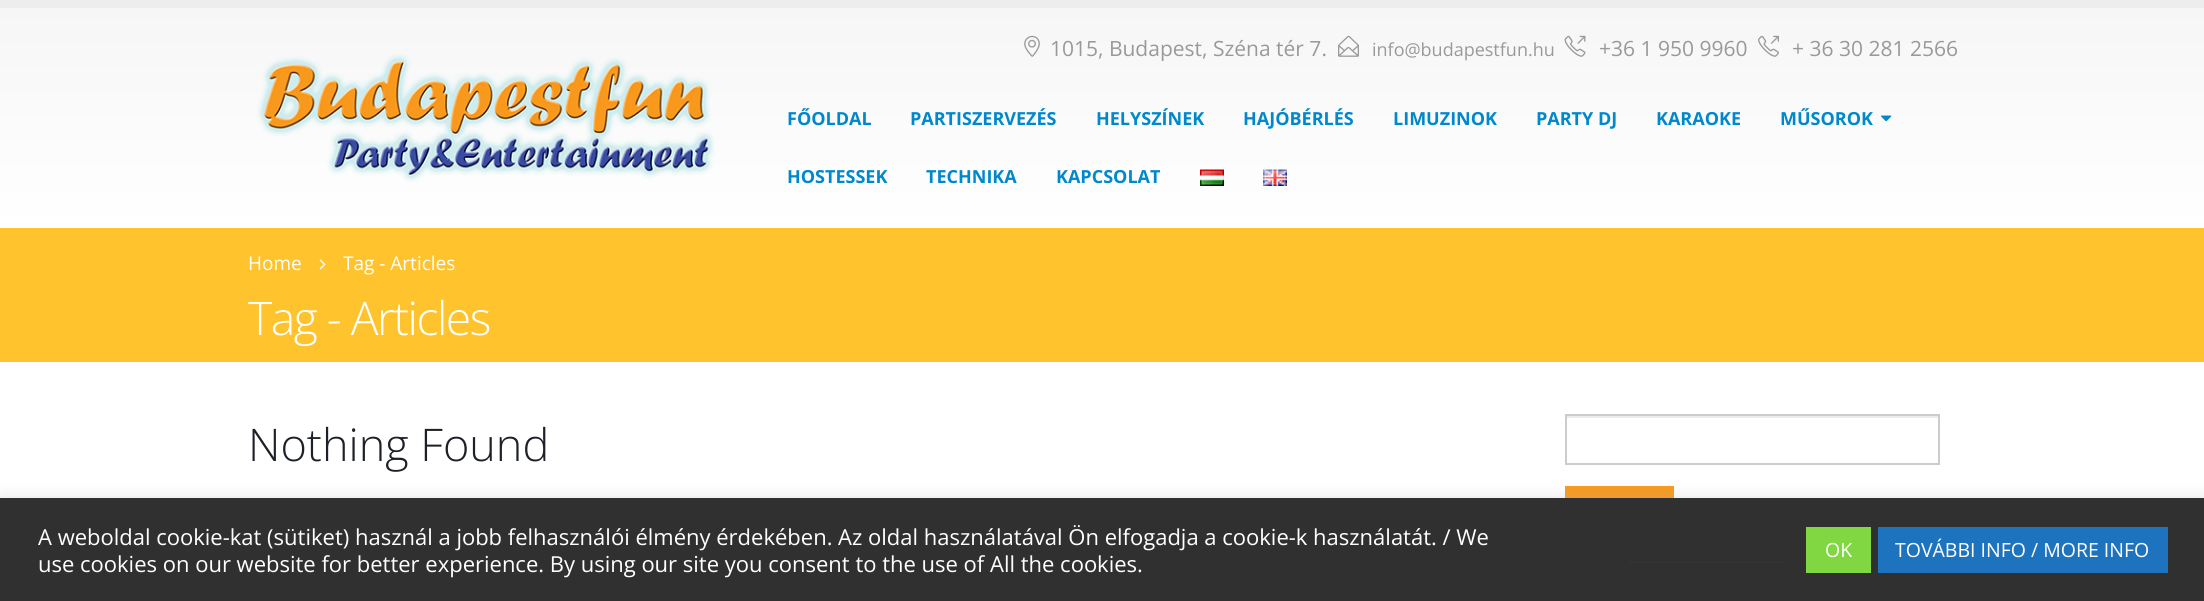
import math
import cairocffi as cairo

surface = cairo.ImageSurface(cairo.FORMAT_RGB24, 2204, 601)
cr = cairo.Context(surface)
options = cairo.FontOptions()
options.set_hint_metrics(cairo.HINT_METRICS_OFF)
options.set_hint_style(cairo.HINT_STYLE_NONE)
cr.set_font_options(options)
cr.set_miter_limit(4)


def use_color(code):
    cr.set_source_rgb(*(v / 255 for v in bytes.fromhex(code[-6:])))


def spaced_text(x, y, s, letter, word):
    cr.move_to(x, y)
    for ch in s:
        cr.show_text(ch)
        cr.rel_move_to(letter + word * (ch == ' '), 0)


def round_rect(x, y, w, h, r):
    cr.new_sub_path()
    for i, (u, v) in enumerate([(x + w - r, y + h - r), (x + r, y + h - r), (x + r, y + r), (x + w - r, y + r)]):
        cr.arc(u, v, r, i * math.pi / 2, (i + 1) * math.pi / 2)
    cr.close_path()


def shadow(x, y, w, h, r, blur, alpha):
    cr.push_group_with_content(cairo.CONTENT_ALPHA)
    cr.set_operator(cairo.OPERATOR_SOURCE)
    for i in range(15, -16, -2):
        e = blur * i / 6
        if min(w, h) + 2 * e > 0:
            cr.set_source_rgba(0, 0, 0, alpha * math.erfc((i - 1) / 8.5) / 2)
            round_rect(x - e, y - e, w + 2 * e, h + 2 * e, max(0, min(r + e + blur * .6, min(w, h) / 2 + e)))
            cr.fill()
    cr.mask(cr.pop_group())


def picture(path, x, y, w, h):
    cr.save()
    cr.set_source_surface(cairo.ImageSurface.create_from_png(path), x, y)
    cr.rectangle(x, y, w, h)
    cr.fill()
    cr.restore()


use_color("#ededed")
cr.paint()
gradient = cairo.LinearGradient(1103, 7.5, 1103, 228)
gradient.add_color_stop_rgba(0, 0.965, 0.965, 0.965, 1)
gradient.add_color_stop_rgba(1, 1, 1, 1, 1)
cr.set_source(gradient)
cr.rectangle(0, 8, 2204, 220)
cr.fill()
picture("img1.png", 257, 54, 458, 128)
picture("img2.png", 1024, 35, 16, 22)
cr.select_font_face("Open Sans")
cr.set_font_size(21)
use_color("#999999")
cr.move_to(1050, 56)
cr.show_text("1015, Budapest, Széna tér 7.")
picture("img3.png", 1338, 35, 21, 22)
cr.set_font_size(18)
cr.move_to(1372, 56)
cr.show_text("info@budapestfun.hu")
picture("img4.png", 1564, 35, 22, 22)
cr.set_font_size(21)
cr.move_to(1599, 56)
cr.show_text("+36 1 950 9960")
picture("img5.png", 1758, 35, 21, 22)
cr.move_to(1792, 56)
cr.show_text("+ 36 30 281 2566")
cr.select_font_face("Open Sans", cairo.FONT_SLANT_NORMAL, cairo.FONT_WEIGHT_BOLD)
cr.set_font_size(18)
use_color("#0088cc")
cr.move_to(787, 125)
cr.show_text("FŐOLDAL")
cr.move_to(910, 125)
cr.show_text("PARTISZERVEZÉS")
cr.move_to(1096, 125)
cr.show_text("HELYSZÍNEK")
cr.move_to(1243, 125)
cr.show_text("HAJÓBÉRLÉS")
cr.move_to(1393, 125)
cr.show_text("LIMUZINOK")
cr.move_to(1536, 125)
cr.show_text("PARTY DJ")
cr.move_to(1656, 125)
cr.show_text("KARAOKE")
cr.move_to(1780, 125)
cr.show_text("MŰSOROK")
picture("img6.png", 1881, 115, 11, 7)
cr.move_to(787, 183)
cr.show_text("HOSTESSEK")
cr.move_to(926, 183)
cr.show_text("TECHNIKA")
cr.move_to(1056, 183)
cr.show_text("KAPCSOLAT")
picture("img7.png", 1200, 169, 24, 17)
picture("img8.png", 1263, 169, 24, 17)
use_color("#ffc32d")
cr.rectangle(0, 228, 2204, 134)
cr.fill()
cr.select_font_face("Open Sans")
cr.set_font_size(19)
use_color("#ffffff")
cr.move_to(248, 270)
cr.show_text("Home")
picture("img9.png", 319, 259, 7, 11)
cr.move_to(343, 270)
cr.show_text("Tag - Articles")
cr.select_font_face("Open Sans Light")
cr.set_font_size(46.25)
spaced_text(248, 335, "Tag - Articles", -1.5, 0)
cr.rectangle(0, 362, 2204, 136)
cr.fill()
cr.set_font_size(45)
use_color("#1d2127")
cr.move_to(248, 461)
cr.show_text("Nothing Found")
use_color("#ececec")
cr.rectangle(1566, 416, 372, 2)
cr.fill()
cr.rectangle(1566, 415, 373, 49)
use_color("#cccccc")
cr.stroke()
use_color("#f8991d")
cr.rectangle(1565, 486, 109, 12)
cr.fill()
use_color("#acabab")
shadow(0, 497, 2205, 103, 0, 7.5, 0.3)
use_color("#303030")
cr.rectangle(0, 498, 2204, 103)
cr.fill()
cr.select_font_face("Open Sans")
cr.set_font_size(22)
use_color("#ffffff")
cr.move_to(38, 545)
cr.show_text("A weboldal cookie-kat (sütiket) használ a jobb felhasználói élmény érdekében. Az oldal használatával Ön elfogadja a cookie-k használatát. / We")
cr.move_to(38, 572)
cr.show_text("use cookies on our website for better experience. By using our site you consent to the use of All the cookies.")
use_color("#81d742")
cr.rectangle(1806, 527, 65, 46)
cr.fill()
cr.set_font_size(19.5)
use_color("#ffffff")
cr.move_to(1825, 557)
cr.show_text("OK")
use_color("#1e73be")
cr.rectangle(1878, 527, 290, 46)
cr.fill()
use_color("#ffffff")
cr.move_to(1895, 557)
cr.show_text("TOVÁBBI INFO / MORE INFO")
use_color("#333333")
cr.rectangle(1629, 561, 155, 2)
cr.fill()
surface.write_to_png("result.png")
